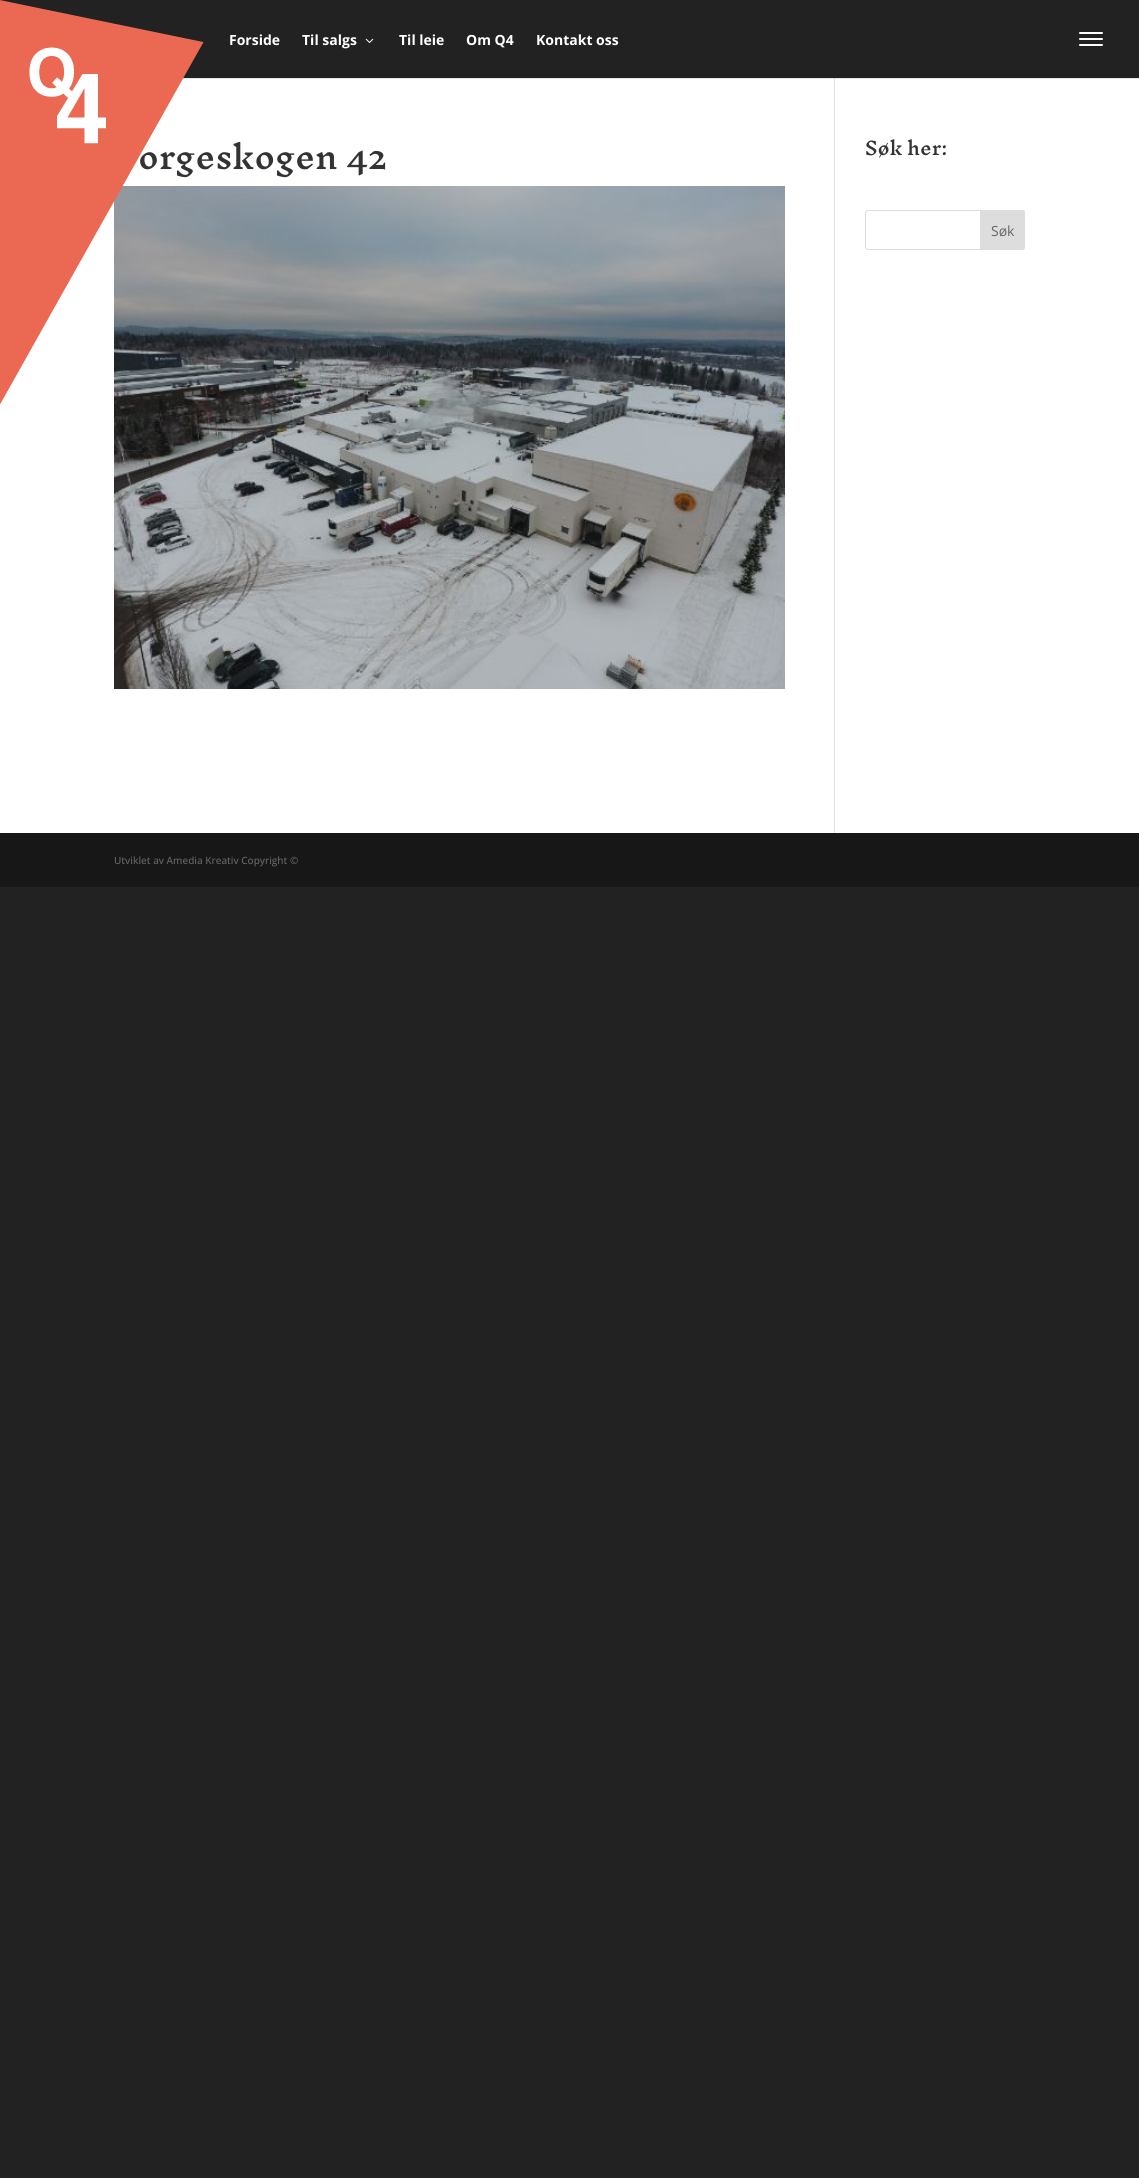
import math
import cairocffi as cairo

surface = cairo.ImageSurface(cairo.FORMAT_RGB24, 1139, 2178)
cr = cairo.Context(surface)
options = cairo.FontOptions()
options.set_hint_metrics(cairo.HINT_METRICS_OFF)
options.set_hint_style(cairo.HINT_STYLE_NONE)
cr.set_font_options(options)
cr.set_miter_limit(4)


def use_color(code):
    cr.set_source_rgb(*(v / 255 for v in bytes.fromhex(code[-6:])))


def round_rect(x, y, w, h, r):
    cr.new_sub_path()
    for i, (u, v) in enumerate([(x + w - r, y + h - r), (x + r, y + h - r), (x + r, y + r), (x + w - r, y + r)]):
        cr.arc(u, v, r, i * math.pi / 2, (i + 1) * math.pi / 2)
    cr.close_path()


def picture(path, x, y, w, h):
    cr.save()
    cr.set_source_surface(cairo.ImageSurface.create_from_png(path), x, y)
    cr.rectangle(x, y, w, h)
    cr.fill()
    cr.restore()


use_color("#222222")
cr.paint()
use_color("#ffffff")
cr.rectangle(0, 79, 1139, 754)
cr.fill()
use_color("#e6e6e6")
cr.rectangle(182, 78, 957, 1)
cr.fill()
cr.select_font_face("Inknut Antiqua Medium")
cr.set_font_size(31)
use_color("#333333")
cr.move_to(138, 169)
cr.show_text("orgeskogen 42")
picture("img3.png", 114, 186, 671, 503)
picture("img1.png", 0, 0, 204, 404)
cr.select_font_face("Open Sans", cairo.FONT_SLANT_NORMAL, cairo.FONT_WEIGHT_BOLD)
cr.set_font_size(14)
use_color("#ffffff")
cr.move_to(229, 45)
cr.show_text("Forside")
cr.move_to(302, 45)
cr.show_text("Til salgs")
picture("img2.png", 365, 38, 9, 5)
cr.move_to(399, 45)
cr.show_text("Til leie")
cr.move_to(466, 45)
cr.show_text("Om Q4")
cr.move_to(536, 45)
cr.show_text("Kontakt oss")
round_rect(1079, 32, 24, 2, 1)
cr.fill()
round_rect(1079, 38, 24, 2, 1)
cr.fill()
round_rect(1079, 44, 24, 2, 1)
cr.fill()
use_color("#e2e2e2")
cr.rectangle(834, 78, 1, 755)
cr.fill()
use_color("#cbcbcb")
cr.rectangle(834, 78, 1, 1)
cr.fill()
cr.select_font_face("Inknut Antiqua Medium")
cr.set_font_size(18)
use_color("#333333")
cr.move_to(865, 155)
cr.show_text("Søk her:")
round_rect(865.5, 210.5, 159, 39, 2.5)
use_color("#dddddd")
cr.set_line_width(1)
cr.stroke()
cr.new_path()
cr.move_to(980.5, 210.5)
cr.line_to(1022, 210.5)
cr.curve_to(1023.5, 210.5, 1024.5, 211.5, 1024.5, 213)
cr.line_to(1024.5, 247)
cr.curve_to(1024.5, 248.5, 1023.5, 249.5, 1022, 249.5)
cr.line_to(980.5, 249.5)
cr.close_path()
cr.fill_preserve()
cr.stroke()
cr.select_font_face("Open Sans")
cr.set_font_size(14)
use_color("#666666")
cr.move_to(991, 236)
cr.show_text("Søk")
use_color("#171717")
cr.rectangle(0, 833, 1139, 54)
cr.fill()
cr.select_font_face("Open Sans Medium")
cr.set_font_size(10)
use_color("#666666")
cr.move_to(114, 864)
cr.show_text("Utviklet av Amedia Kreativ Copyright ©")
surface.write_to_png("result.png")
